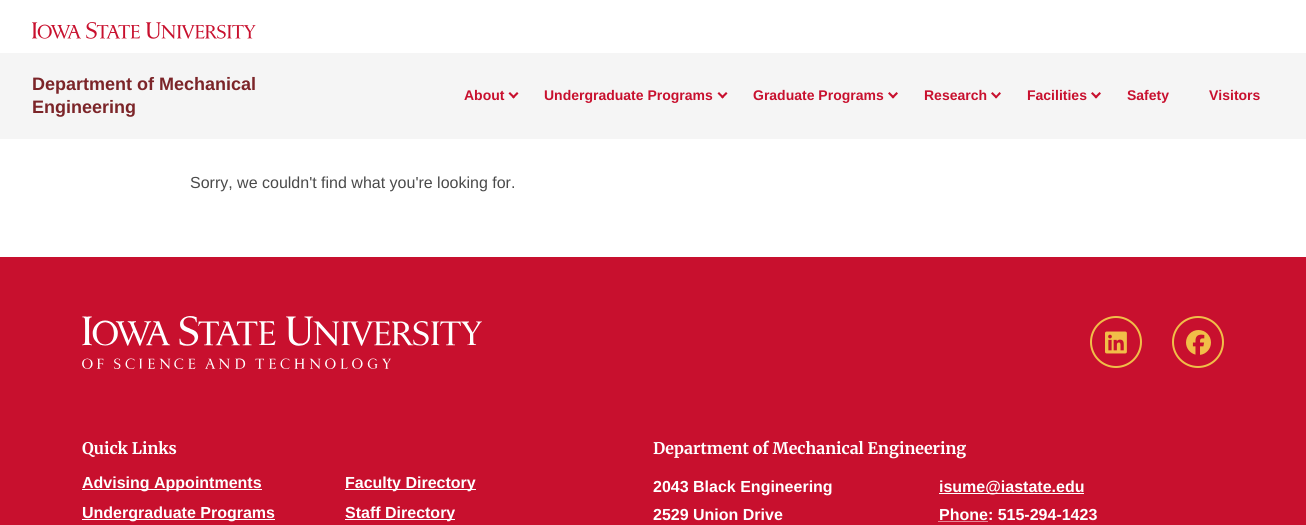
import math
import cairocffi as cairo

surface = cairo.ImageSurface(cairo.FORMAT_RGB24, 1306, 525)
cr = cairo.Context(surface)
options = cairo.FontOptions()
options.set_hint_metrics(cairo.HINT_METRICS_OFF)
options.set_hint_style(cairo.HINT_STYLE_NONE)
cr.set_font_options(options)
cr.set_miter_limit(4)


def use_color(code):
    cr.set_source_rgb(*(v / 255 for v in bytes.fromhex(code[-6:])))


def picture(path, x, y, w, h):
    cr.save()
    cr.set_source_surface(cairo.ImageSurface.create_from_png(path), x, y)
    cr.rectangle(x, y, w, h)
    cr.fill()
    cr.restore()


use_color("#ffffff")
cr.paint()
picture("img1.png", 32, 22, 224, 17)
use_color("#f5f5f5")
cr.rectangle(0, 53, 1306, 86)
cr.fill()
cr.select_font_face("Liberation Sans", cairo.FONT_SLANT_NORMAL, cairo.FONT_WEIGHT_BOLD)
cr.set_font_size(18)
use_color("#7c2529")
cr.move_to(32, 90)
cr.show_text("Department of Mechanical")
cr.move_to(32, 113)
cr.show_text("Engineering")
cr.set_font_size(14)
use_color("#c8102e")
cr.move_to(464, 100)
cr.show_text("About")
cr.new_path()
cr.move_to(517, 92)
cr.line_to(518.5, 93.5)
cr.line_to(513.5, 98.5)
cr.line_to(512, 97)
cr.close_path()
cr.fill()
cr.new_path()
cr.move_to(510, 92)
cr.line_to(515, 97)
cr.line_to(513.5, 98.5)
cr.line_to(508.5, 93.5)
cr.close_path()
cr.fill()
cr.move_to(544, 100)
cr.show_text("Undergraduate Programs")
cr.new_path()
cr.move_to(726, 92)
cr.line_to(727.5, 93.5)
cr.line_to(722.5, 98.5)
cr.line_to(721, 97)
cr.close_path()
cr.fill()
cr.new_path()
cr.move_to(719, 92)
cr.line_to(724, 97)
cr.line_to(722.5, 98.5)
cr.line_to(717.5, 93.5)
cr.close_path()
cr.fill()
cr.move_to(753, 100)
cr.show_text("Graduate Programs")
cr.new_path()
cr.move_to(896.5, 92)
cr.line_to(898, 93.5)
cr.line_to(893, 98.5)
cr.line_to(891.5, 97)
cr.close_path()
cr.fill()
cr.new_path()
cr.move_to(889.5, 92)
cr.line_to(894.5, 97)
cr.line_to(893, 98.5)
cr.line_to(888, 93.5)
cr.close_path()
cr.fill()
cr.move_to(924, 100)
cr.show_text("Research")
cr.new_path()
cr.move_to(999.5, 92)
cr.line_to(1001, 93.5)
cr.line_to(996, 98.5)
cr.line_to(995, 97)
cr.close_path()
cr.fill()
cr.new_path()
cr.move_to(992.5, 92)
cr.line_to(997.5, 97)
cr.line_to(996, 98.5)
cr.line_to(991, 93.5)
cr.close_path()
cr.fill()
cr.move_to(1027, 100)
cr.show_text("Facilities")
cr.new_path()
cr.move_to(1099.5, 92)
cr.line_to(1101, 93.5)
cr.line_to(1096, 98.5)
cr.line_to(1094.5, 97)
cr.close_path()
cr.fill()
cr.new_path()
cr.move_to(1092.5, 92)
cr.line_to(1097.5, 97)
cr.line_to(1096, 98.5)
cr.line_to(1091, 93.5)
cr.close_path()
cr.fill()
cr.move_to(1127, 100)
cr.show_text("Safety")
cr.move_to(1209, 100)
cr.show_text("Visitors")
cr.select_font_face("Liberation Sans")
cr.set_font_size(16)
use_color("#4a4a4a")
cr.move_to(190, 188)
cr.show_text("Sorry, we couldn't find what you're looking for.")
use_color("#c8102e")
cr.rectangle(0, 257, 1306, 268)
cr.fill()
picture("img2.png", 82, 316, 400, 53)
cr.arc(1116, 342, 25, 0, 2 * math.pi)
use_color("#f1be48")
cr.stroke()
picture("img3.png", 1105, 331, 22, 23)
cr.arc(1198, 342, 25, 0, 2 * math.pi)
cr.stroke()
picture("img4.png", 1186, 330, 25, 25)
cr.select_font_face("Merriweather", cairo.FONT_SLANT_NORMAL, cairo.FONT_WEIGHT_BOLD)
use_color("#ffffff")
cr.move_to(82, 454)
cr.show_text("Quick Links")
cr.rectangle(82, 489, 180, 1)
cr.fill()
cr.select_font_face("Liberation Sans", cairo.FONT_SLANT_NORMAL, cairo.FONT_WEIGHT_BOLD)
cr.move_to(82, 488)
cr.show_text("Advising Appointments")
cr.rectangle(345, 489, 131, 1)
cr.fill()
cr.move_to(345, 488)
cr.show_text("Faculty Directory")
cr.rectangle(82, 519, 193, 1)
cr.fill()
cr.move_to(82, 518)
cr.show_text("Undergraduate Programs")
cr.rectangle(345, 519, 110, 1)
cr.fill()
cr.move_to(345, 518)
cr.show_text("Staff Directory")
cr.select_font_face("Merriweather", cairo.FONT_SLANT_NORMAL, cairo.FONT_WEIGHT_BOLD)
cr.move_to(653, 454)
cr.show_text("Department of Mechanical Engineering")
cr.select_font_face("Liberation Sans", cairo.FONT_SLANT_NORMAL, cairo.FONT_WEIGHT_BOLD)
cr.move_to(653, 492)
cr.show_text("2043 Black Engineering")
cr.move_to(653, 520)
cr.show_text("2529 Union Drive")
cr.rectangle(939, 493, 145, 1)
cr.fill()
cr.move_to(939, 492)
cr.show_text("isume@iastate.edu")
cr.move_to(939, 520)
cr.show_text("Phone: 515-294-1423")
cr.new_path()
cr.move_to(938.5, 521.5)
cr.line_to(987.5, 521.5)
cr.set_line_width(1)
cr.set_dash([1, 1])
cr.stroke()
surface.write_to_png("result.png")
